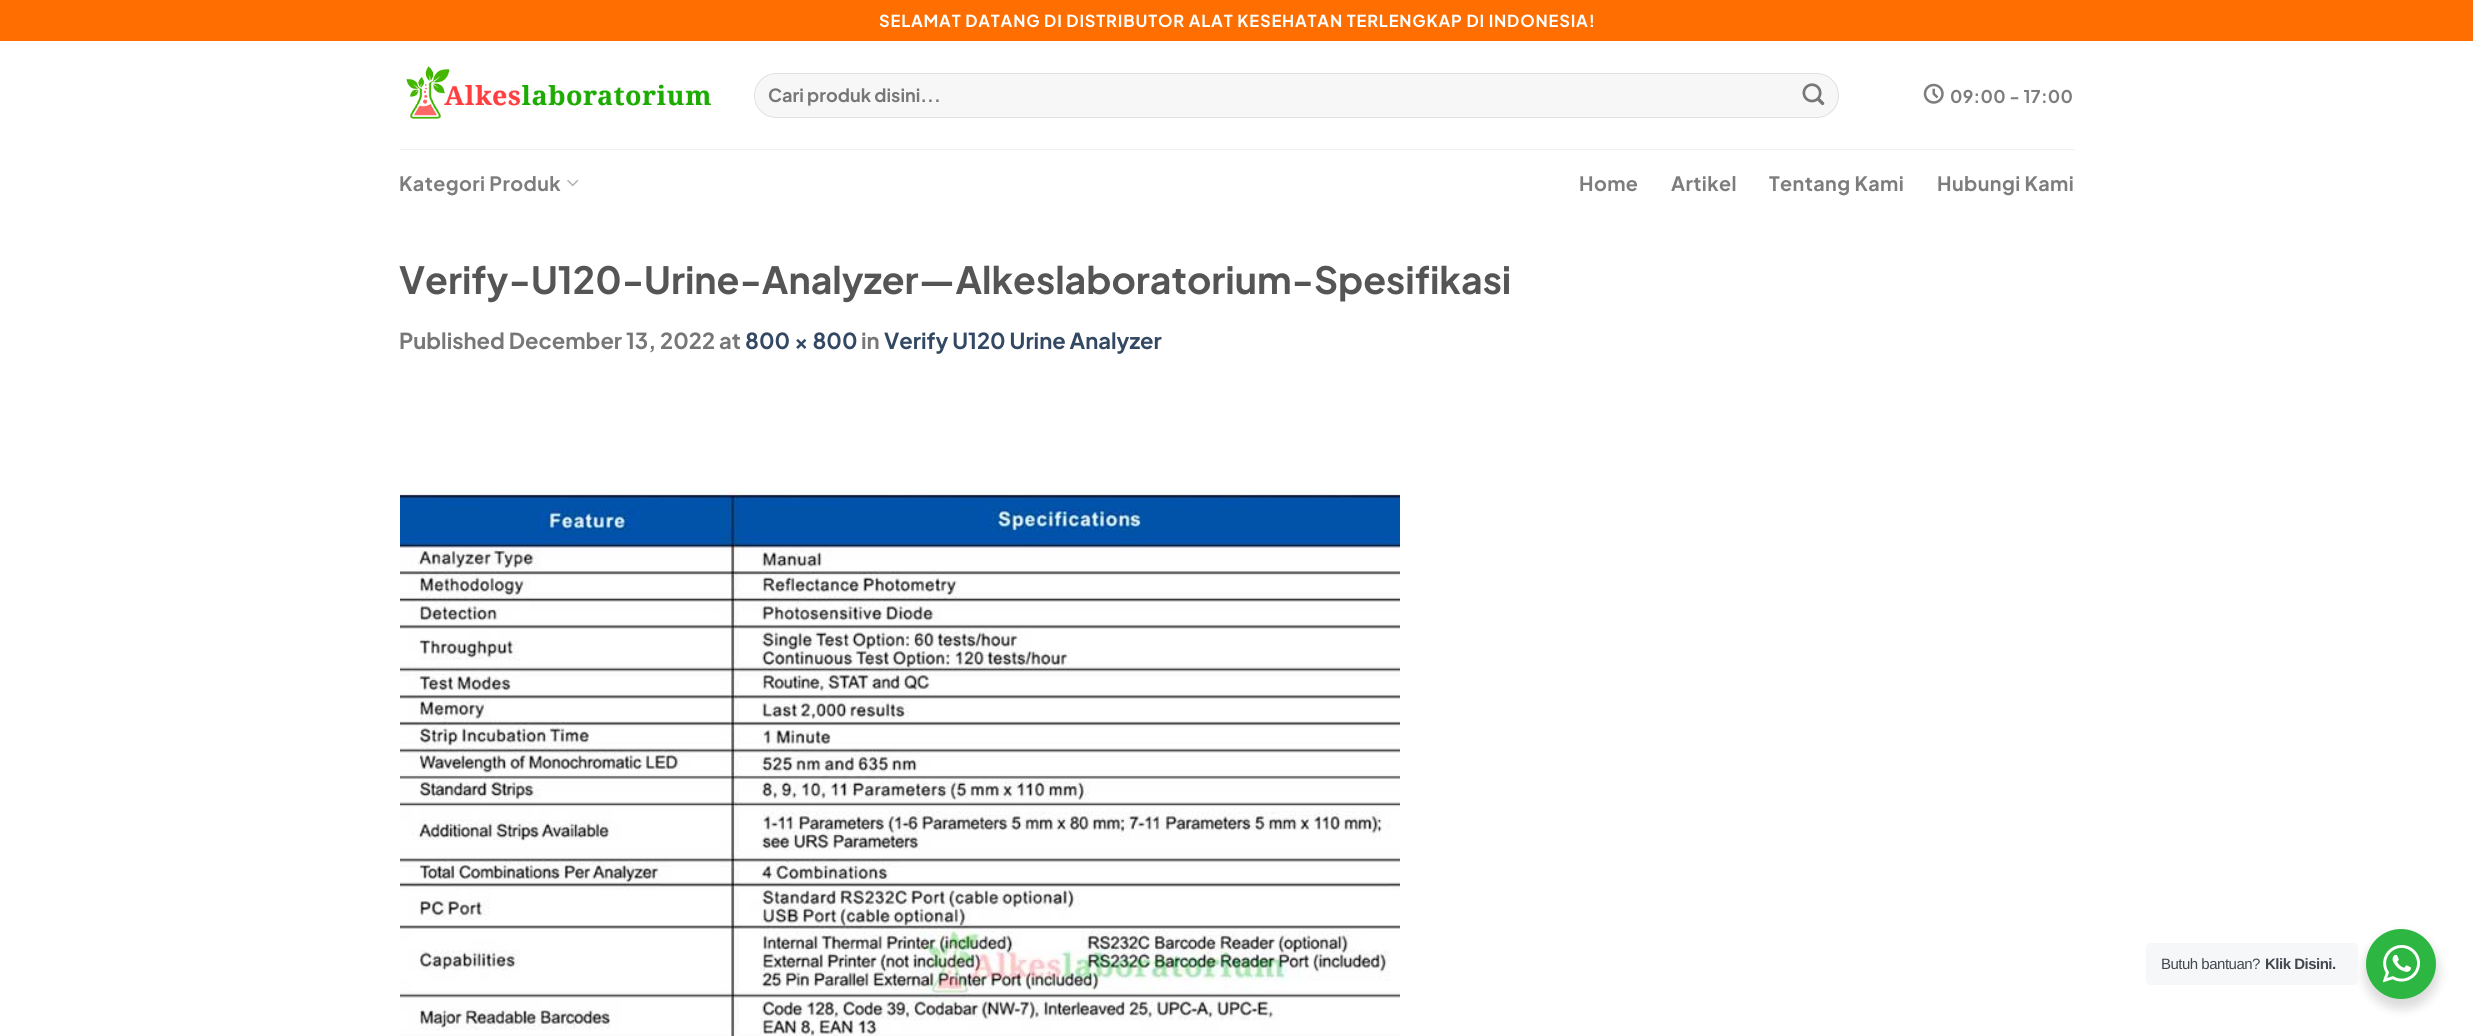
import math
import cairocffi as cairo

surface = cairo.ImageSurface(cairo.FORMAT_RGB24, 2473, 1036)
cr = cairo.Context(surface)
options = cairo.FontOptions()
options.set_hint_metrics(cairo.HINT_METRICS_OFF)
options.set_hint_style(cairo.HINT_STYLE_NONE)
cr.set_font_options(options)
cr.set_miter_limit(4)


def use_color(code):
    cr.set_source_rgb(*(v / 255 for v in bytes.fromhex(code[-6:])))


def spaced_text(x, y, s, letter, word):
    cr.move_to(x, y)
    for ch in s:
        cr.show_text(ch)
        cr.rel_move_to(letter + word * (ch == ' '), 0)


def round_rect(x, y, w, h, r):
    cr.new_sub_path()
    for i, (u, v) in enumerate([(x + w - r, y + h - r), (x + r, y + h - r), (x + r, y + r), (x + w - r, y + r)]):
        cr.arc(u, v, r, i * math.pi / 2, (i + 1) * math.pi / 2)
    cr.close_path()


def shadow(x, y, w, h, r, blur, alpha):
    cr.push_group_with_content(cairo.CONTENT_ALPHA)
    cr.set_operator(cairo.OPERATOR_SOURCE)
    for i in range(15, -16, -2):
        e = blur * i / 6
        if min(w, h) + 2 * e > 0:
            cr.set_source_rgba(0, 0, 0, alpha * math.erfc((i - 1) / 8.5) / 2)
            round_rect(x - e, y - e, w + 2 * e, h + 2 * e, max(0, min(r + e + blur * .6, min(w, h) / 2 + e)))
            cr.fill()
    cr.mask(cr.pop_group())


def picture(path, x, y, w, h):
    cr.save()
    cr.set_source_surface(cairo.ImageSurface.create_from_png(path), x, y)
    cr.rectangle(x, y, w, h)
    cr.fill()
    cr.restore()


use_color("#ffffff")
cr.paint()
use_color("#ff6e00")
cr.rectangle(0, 0, 2473, 41)
cr.fill()
cr.select_font_face("Plus Jakarta Sans", cairo.FONT_SLANT_NORMAL, cairo.FONT_WEIGHT_BOLD)
cr.set_font_size(16.5)
use_color("#ffffff")
spaced_text(879, 27, "SELAMAT DATANG DI DISTRIBUTOR ALAT KESEHATAN TERLENGKAP DI INDONESIA!", 0.83, 0)
picture("img1.png", 406, 66, 305, 53)
use_color("#f7f7f7")
round_rect(754, 73, 1085, 45, 22.5)
cr.fill()
round_rect(754.5, 73.5, 1084, 44, 22)
cr.set_source_rgba(0, 0, 0, 0.09)
cr.set_line_width(1)
cr.stroke()
cr.set_font_size(18.1)
use_color("#777777")
cr.move_to(768, 102)
cr.show_text("Cari produk disini...")
picture("img2.png", 1802, 83, 23, 23)
picture("img3.png", 1923, 83, 21, 21)
cr.set_font_size(17.5)
use_color("#7d7d7d")
spaced_text(1950, 103, "09:00 - 17:00", 0.3, 0)
use_color("#f1f1f1")
cr.rectangle(400, 149, 1675, 1)
cr.fill()
cr.set_font_size(19.75)
use_color("#7d7d7d")
spaced_text(399, 191, "Kategori Produk", 0.4, 0)
picture("img4.png", 567, 179, 12, 8)
spaced_text(1579, 191, "Home", 0.4, 0)
spaced_text(1671, 191, "Artikel", 0.4, 0)
spaced_text(1769, 191, "Tentang Kami", 0.4, 0)
spaced_text(1937, 191, "Hubungi Kami", 0.4, 0)
cr.set_font_size(37.4)
use_color("#555555")
cr.move_to(399, 294)
cr.show_text("Verify-U120-Urine-Analyzer—Alkeslaboratorium-Spesifikasi")
cr.set_font_size(22)
use_color("#777777")
cr.move_to(399, 349)
cr.show_text("Published December 13, 2022 at")
use_color("#334862")
cr.move_to(745, 349)
cr.show_text("800 × 800")
use_color("#777777")
cr.move_to(861, 349)
cr.show_text("in")
use_color("#334862")
cr.move_to(884, 349)
cr.show_text("Verify U120 Urine Analyzer")
picture("img5.png", 400, 490, 1000, 546)
use_color("#000000")
shadow(2364, 934, 75, 75, 37.5, 5, 0.14)
use_color("#f5f7f9")
round_rect(2146, 943, 212, 42, 5)
cr.fill()
cr.select_font_face("Liberation Sans")
cr.set_font_size(15)
use_color("#43474e")
spaced_text(2161, 969, "Butuh bantuan?", -0.5, 0)
cr.select_font_face("Liberation Sans", cairo.FONT_SLANT_NORMAL, cairo.FONT_WEIGHT_BOLD)
spaced_text(2265, 969, "Klik Disini.", -0.5, 0)
use_color("#2db742")
cr.new_path()
cr.arc(2401, 964, 35, 0, 2 * math.pi)
cr.fill()
picture("img6.png", 2383, 945, 37, 38)
surface.write_to_png("result.png")
